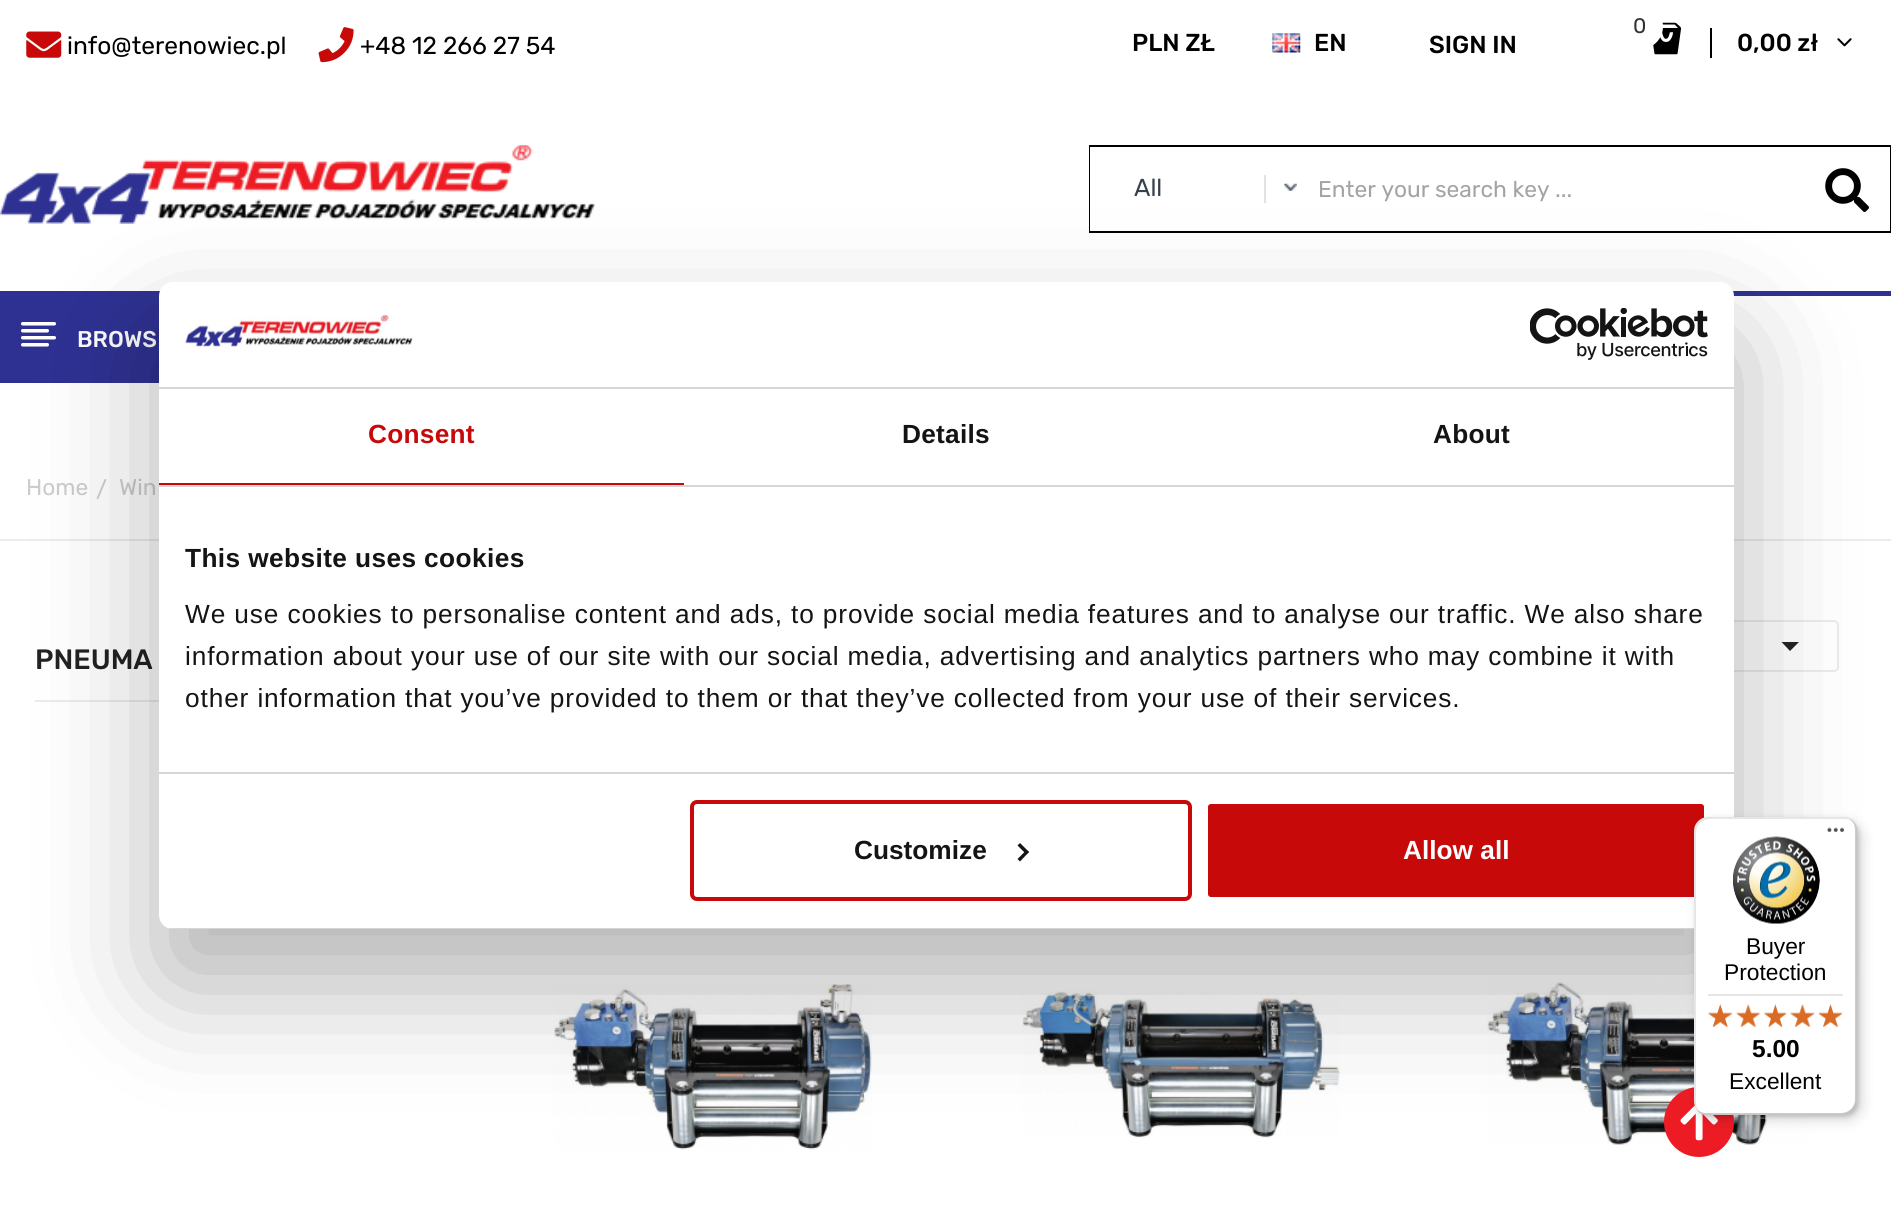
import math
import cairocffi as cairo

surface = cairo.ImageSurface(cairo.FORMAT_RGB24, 1891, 1208)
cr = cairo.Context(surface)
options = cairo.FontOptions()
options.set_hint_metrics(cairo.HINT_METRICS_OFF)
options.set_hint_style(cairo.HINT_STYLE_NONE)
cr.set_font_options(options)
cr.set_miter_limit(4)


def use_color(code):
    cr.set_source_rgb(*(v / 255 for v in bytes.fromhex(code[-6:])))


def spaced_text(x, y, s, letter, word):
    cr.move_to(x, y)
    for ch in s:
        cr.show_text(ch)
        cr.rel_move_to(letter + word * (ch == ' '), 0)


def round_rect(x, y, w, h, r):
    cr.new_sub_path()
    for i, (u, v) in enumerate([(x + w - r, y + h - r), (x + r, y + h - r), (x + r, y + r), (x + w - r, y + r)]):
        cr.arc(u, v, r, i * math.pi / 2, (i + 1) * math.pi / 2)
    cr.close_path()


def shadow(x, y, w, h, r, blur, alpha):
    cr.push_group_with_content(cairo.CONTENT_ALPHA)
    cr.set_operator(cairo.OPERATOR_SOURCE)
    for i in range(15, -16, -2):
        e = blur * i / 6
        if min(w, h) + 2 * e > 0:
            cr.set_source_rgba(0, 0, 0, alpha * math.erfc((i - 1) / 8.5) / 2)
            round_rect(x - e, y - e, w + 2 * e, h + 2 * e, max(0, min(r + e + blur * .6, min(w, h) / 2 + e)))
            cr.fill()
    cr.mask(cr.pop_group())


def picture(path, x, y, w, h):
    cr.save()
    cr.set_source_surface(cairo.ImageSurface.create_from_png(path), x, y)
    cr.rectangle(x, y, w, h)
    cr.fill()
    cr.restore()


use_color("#ffffff")
cr.paint()
picture("img1.png", 26, 31, 36, 27)
cr.select_font_face("Rubik")
cr.set_font_size(24.5)
use_color("#000000")
cr.move_to(67, 54)
cr.show_text("info@terenowiec.pl")
picture("img2.png", 318, 27, 36, 36)
cr.move_to(360, 54)
cr.show_text("+48 12 266 27 54")
cr.select_font_face("Rubik Medium")
cr.move_to(1132, 51)
cr.show_text("PLN ZŁ")
picture("img3.png", 1272, 33, 29, 20)
cr.move_to(1314, 51)
cr.show_text("EN")
cr.move_to(1429, 53)
cr.show_text("SIGN IN")
picture("img4.png", 1653, 22, 29, 33)
use_color("#ffffff")
round_rect(1617, 4, 46, 45, 22.5)
cr.fill()
cr.select_font_face("Rubik")
cr.set_font_size(21)
use_color("#333333")
cr.move_to(1633, 33)
cr.show_text("0")
cr.select_font_face("Rubik Medium")
cr.set_font_size(24.5)
use_color("#000000")
cr.move_to(1737, 51)
cr.show_text("0,00 zł")
cr.rectangle(1710, 28, 2, 30)
cr.fill()
picture("img5.png", 1837, 38, 15, 9)
picture("img6.png", 0, 145, 595, 79)
cr.rectangle(1090, 146, 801, 86)
cr.stroke()
use_color("#ffffff")
cr.rectangle(1090, 147, 1, 84)
cr.fill()
picture("img7.png", 1284, 183, 13, 8)
cr.select_font_face("Rubik")
use_color("#363f4d")
cr.move_to(1134, 196)
cr.show_text("All")
use_color("#e1e1e1")
cr.rectangle(1264, 175, 2, 28)
cr.fill()
cr.set_font_size(22.75)
use_color("#a4a4a4")
cr.move_to(1318, 197)
cr.show_text("Enter your search key ...")
picture("img8.png", 1825, 168, 44, 44)
use_color("#2e3192")
cr.rectangle(0, 291, 1891, 5)
cr.fill()
cr.rectangle(0, 296, 159, 87)
cr.fill()
picture("img9.png", 21, 322, 35, 25)
cr.select_font_face("Rubik Medium")
use_color("#ffffff")
cr.move_to(77, 347)
cr.show_text("BROWS")
use_color("#ebebeb")
cr.rectangle(0, 539, 1891, 2)
cr.fill()
cr.select_font_face("Rubik")
use_color("#cccccc")
cr.move_to(26, 495)
cr.show_text("Home")
cr.move_to(96, 497)
cr.show_text("/")
cr.move_to(119, 495)
cr.show_text("Win")
use_color("#ebebeb")
cr.rectangle(35, 700, 124, 2)
cr.fill()
cr.select_font_face("Rubik Medium")
cr.set_font_size(28)
use_color("#222222")
cr.move_to(35, 669)
cr.show_text("PNEUMA")
round_rect(1385, 621, 453, 50, 4)
use_color("#ebebeb")
cr.stroke()
use_color("#242424")
cr.new_path()
cr.move_to(1781.5, 642)
cr.line_to(1799, 642)
cr.line_to(1790, 651)
cr.close_path()
cr.fill()
picture("img10.png", 554, 984, 318, 166)
picture("img11.png", 1022, 991, 318, 147)
picture("img12.png", 1487, 976, 324, 169)
use_color("#ed1c24")
cr.arc(1699, 1122, 35, 0, 2 * math.pi)
cr.fill()
picture("img27.png", 1680, 1105, 38, 36)
use_color("#000000")
shadow(159, 338, 1575, 647, 14, 59.5, 0.3)
use_color("#ffffff")
round_rect(159, 282, 1575, 647, 14)
cr.fill()
use_color("#d6d6d6")
cr.rectangle(159, 387, 1575, 2)
cr.fill()
picture("img13.png", 185, 314, 228, 35)
picture("img14.png", 1530, 308, 178, 52)
cr.rectangle(159, 485, 1575, 2)
cr.fill()
use_color("#c70909")
cr.rectangle(159, 483, 525, 2)
cr.fill()
cr.select_font_face("Liberation Sans", cairo.FONT_SLANT_NORMAL, cairo.FONT_WEIGHT_BOLD)
cr.set_font_size(26.25)
spaced_text(368, 443, "Consent", 0.25, 0)
use_color("#141414")
spaced_text(902, 443, "Details", 0.25, 0)
spaced_text(1433, 443, "About", 0.25, 0)
use_color("#d6d6d6")
cr.rectangle(159, 772, 1575, 2)
cr.fill()
use_color("#141414")
spaced_text(185, 567, "This website uses cookies", 0.4, 0)
cr.select_font_face("Liberation Sans")
spaced_text(185, 623, "We use cookies to personalise content and ads, to provide social media features and to analyse our traffic. We also share", 0.88, 0)
spaced_text(185, 665, "information about your use of our site with our social media, advertising and analytics partners who may combine it with", 0.88, 0)
spaced_text(185, 707, "other information that you’ve provided to them or that they’ve collected from your use of their services.", 0.88, 0)
cr.save()
round_rect(159, 282, 1575, 647, 14)
cr.clip()
use_color("#d6d6d6")
cr.rectangle(168, 928, 1526, 1)
cr.fill()
cr.restore()
round_rect(692, 802, 498, 97, 5)
use_color("#c70909")
cr.set_line_width(4)
cr.stroke()
cr.select_font_face("Liberation Sans", cairo.FONT_SLANT_NORMAL, cairo.FONT_WEIGHT_BOLD)
use_color("#141414")
cr.move_to(854, 859)
cr.show_text("Customize")
cr.new_path()
cr.move_to(1020, 843)
cr.line_to(1029, 852)
cr.line_to(1026.5, 854.5)
cr.line_to(1017.5, 845.5)
cr.close_path()
cr.fill()
cr.new_path()
cr.move_to(1026.5, 850)
cr.line_to(1029, 852)
cr.line_to(1020, 861.5)
cr.line_to(1017.5, 859)
cr.close_path()
cr.fill()
use_color("#c70909")
round_rect(1206, 802, 500, 97, 5)
cr.fill_preserve()
use_color("#ffffff")
cr.stroke()
cr.move_to(1403, 859)
cr.show_text("Allow all")
use_color("#000000")
shadow(1699, 823, 163, 297, 14, 7, 0.15)
shadow(1696, 819, 163, 298, 14, 2, 0.15)
use_color("#ffffff")
round_rect(1694, 817, 163, 298, 14)
cr.fill()
cr.set_source_rgba(0, 0, 0, 0.1)
cr.new_path()
cr.move_to(1710, 819)
cr.line_to(1844, 819)
cr.curve_to(1849, 819, 1853, 821, 1856, 825)
cr.curve_to(1853, 820, 1849, 817, 1843, 817)
cr.line_to(1708, 817)
cr.curve_to(1700, 817, 1694, 823, 1694, 831)
cr.line_to(1694, 1101)
cr.curve_to(1694, 1107, 1697, 1111, 1702, 1114)
cr.curve_to(1698, 1111, 1696, 1107, 1696, 1102)
cr.line_to(1696, 833)
cr.curve_to(1696, 825, 1702, 819, 1710, 819)
cr.close_path()
cr.fill()
cr.set_source_rgba(0, 0, 0, 0.2)
cr.new_path()
cr.move_to(1697, 1109)
cr.curve_to(1699, 1113, 1703, 1115, 1708, 1115)
cr.line_to(1843, 1115)
cr.curve_to(1851, 1115, 1857, 1109, 1857, 1101)
cr.line_to(1857, 831)
cr.curve_to(1857, 825, 1854, 821, 1849, 818)
cr.curve_to(1853, 821, 1855, 825, 1855, 830)
cr.line_to(1855, 1099)
cr.curve_to(1855, 1107, 1849, 1113, 1841, 1113)
cr.line_to(1706, 1113)
cr.curve_to(1703, 1113, 1699, 1112, 1697, 1109)
cr.close_path()
cr.fill()
cr.set_source_rgba(0.196, 0.196, 0.196, 0.2)
cr.new_path()
cr.move_to(1697, 1109)
cr.curve_to(1699, 1113, 1703, 1115, 1708, 1115)
cr.line_to(1843, 1115)
cr.curve_to(1851, 1115, 1857, 1109, 1857, 1101)
cr.line_to(1857, 831)
cr.curve_to(1857, 826, 1855, 822, 1851, 820)
cr.curve_to(1854, 822, 1856, 826, 1856, 830)
cr.line_to(1856, 1100)
cr.curve_to(1856, 1107, 1849, 1114, 1842, 1114)
cr.line_to(1707, 1114)
cr.curve_to(1703, 1114, 1699, 1112, 1697, 1109)
cr.close_path()
cr.fill()
cr.set_source_rgba(1, 1, 1, 0.3)
cr.new_path()
cr.move_to(1699, 1111)
cr.curve_to(1701, 1114, 1704, 1115, 1708, 1115)
cr.line_to(1843, 1115)
cr.curve_to(1851, 1115, 1857, 1109, 1857, 1101)
cr.line_to(1857, 831)
cr.curve_to(1857, 826, 1855, 822, 1852, 820)
cr.curve_to(1854, 823, 1856, 826, 1856, 830)
cr.line_to(1856, 1100)
cr.curve_to(1856, 1108, 1850, 1114, 1842, 1114)
cr.line_to(1707, 1114)
cr.curve_to(1704, 1114, 1701, 1113, 1699, 1111)
cr.close_path()
cr.fill()
picture("img15.png", 1827, 827, 17, 5)
picture("img16.png", 1733, 836, 87, 88)
cr.select_font_face("Liberation Sans")
cr.set_font_size(22.75)
use_color("#000000")
cr.move_to(1746, 954)
cr.show_text("Buyer")
cr.move_to(1724, 980)
cr.show_text("Protection")
use_color("#e5e5e5")
cr.rectangle(1708, 994, 135, 2)
cr.fill()
picture("img17.png", 1708, 1004, 24, 23)
picture("img18.png", 1736, 1004, 24, 23)
picture("img19.png", 1764, 1004, 22, 23)
picture("img20.png", 1790, 1004, 25, 23)
picture("img21.png", 1819, 1004, 23, 23)
picture("img22.png", 1708, 1004, 24, 24)
picture("img23.png", 1736, 1004, 25, 24)
picture("img24.png", 1764, 1004, 23, 24)
picture("img25.png", 1790, 1004, 25, 24)
picture("img26.png", 1818, 1004, 25, 24)
cr.select_font_face("Liberation Sans", cairo.FONT_SLANT_NORMAL, cairo.FONT_WEIGHT_BOLD)
cr.set_font_size(24.5)
use_color("#000000")
cr.move_to(1752, 1057)
cr.show_text("5.00")
cr.select_font_face("Liberation Sans")
cr.set_font_size(22.75)
cr.move_to(1729, 1089)
cr.show_text("Excellent")
surface.write_to_png("result.png")
